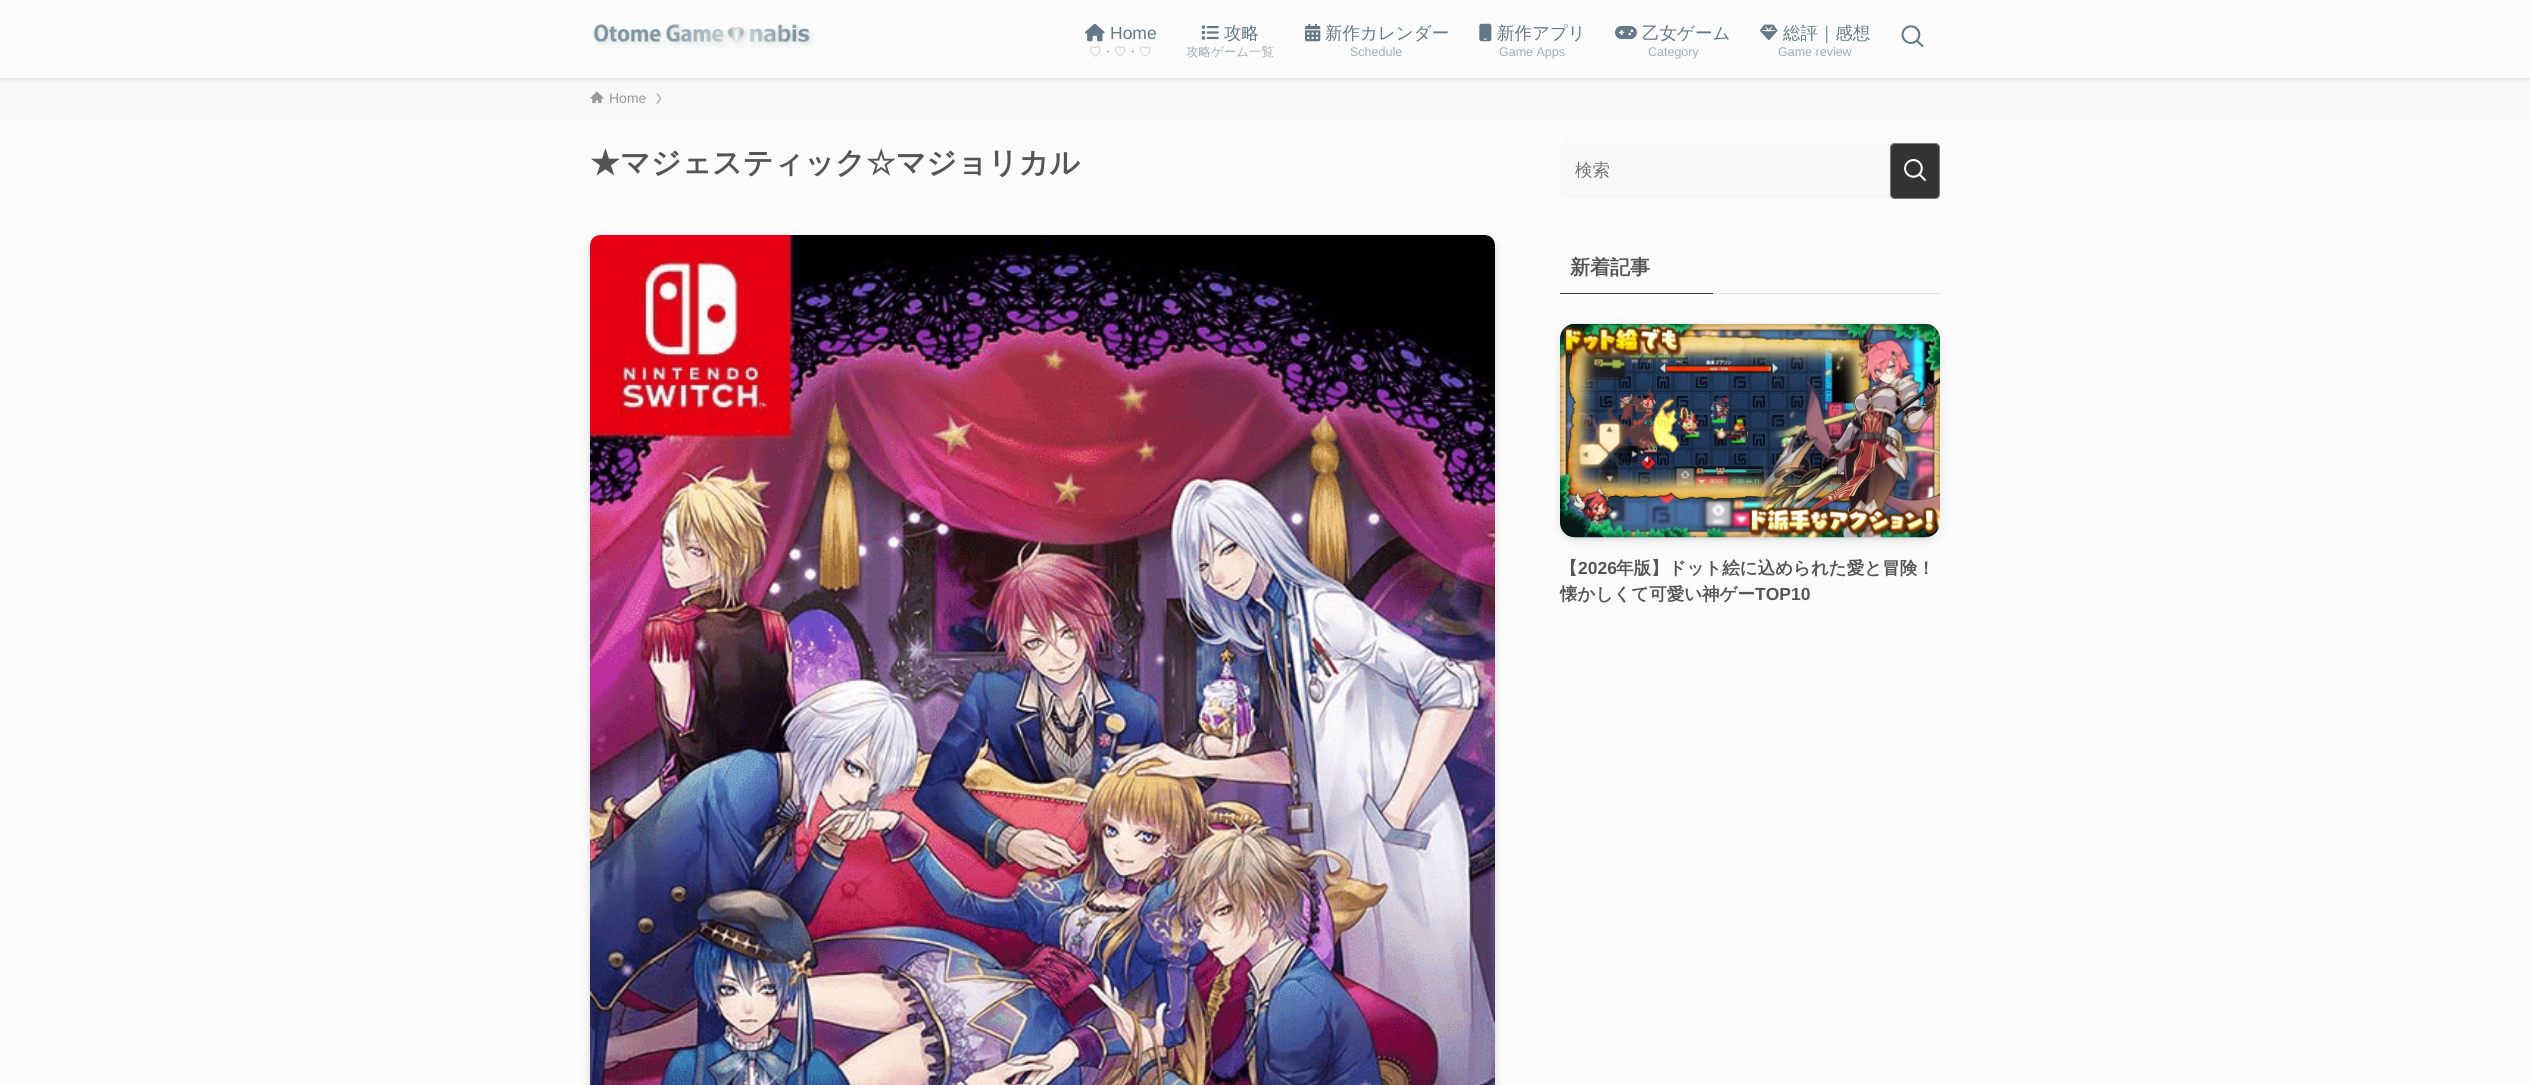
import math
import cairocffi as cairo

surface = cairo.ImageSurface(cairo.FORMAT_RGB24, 2530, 1085)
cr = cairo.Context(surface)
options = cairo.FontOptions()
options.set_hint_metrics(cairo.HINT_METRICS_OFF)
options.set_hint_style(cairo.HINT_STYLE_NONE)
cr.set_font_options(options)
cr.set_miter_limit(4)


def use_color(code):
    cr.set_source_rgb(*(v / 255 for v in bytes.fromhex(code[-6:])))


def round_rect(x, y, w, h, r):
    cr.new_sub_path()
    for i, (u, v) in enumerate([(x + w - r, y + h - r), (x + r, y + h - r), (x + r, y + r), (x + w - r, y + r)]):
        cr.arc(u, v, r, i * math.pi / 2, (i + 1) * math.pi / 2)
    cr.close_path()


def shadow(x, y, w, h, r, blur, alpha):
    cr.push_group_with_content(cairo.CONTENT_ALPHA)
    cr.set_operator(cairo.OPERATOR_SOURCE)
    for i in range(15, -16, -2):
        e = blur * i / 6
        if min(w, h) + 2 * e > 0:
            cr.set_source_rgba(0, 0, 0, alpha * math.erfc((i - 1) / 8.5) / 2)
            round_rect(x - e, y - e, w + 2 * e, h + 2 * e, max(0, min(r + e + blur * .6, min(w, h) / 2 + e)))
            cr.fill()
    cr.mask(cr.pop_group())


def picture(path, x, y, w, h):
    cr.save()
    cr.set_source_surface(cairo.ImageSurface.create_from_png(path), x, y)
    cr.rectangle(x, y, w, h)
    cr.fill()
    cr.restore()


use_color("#fcfcfc")
cr.paint()
use_color("#f7f7f7")
cr.rectangle(0, 78, 2530, 42)
cr.fill()
use_color("#000000")
shadow(0, 1, 2530, 78, 0, 2.5, 0.12)
use_color("#fcfcfc")
cr.rectangle(0, 0, 2530, 78)
cr.fill()
picture("img1.png", 593, 24, 223, 25)
picture("img2.png", 1085, 23, 20, 19)
cr.select_font_face("Liberation Sans")
cr.set_font_size(17.5)
use_color("#647987")
cr.move_to(1110, 39)
cr.show_text("Home")
cr.select_font_face("WenQuanYi Zen Hei Medium")
cr.set_font_size(12.5)
use_color("#a1adb6")
cr.move_to(1089, 56)
cr.show_text("♡・♡・♡")
picture("img3.png", 1201, 25, 18, 15)
cr.set_font_size(17.5)
use_color("#647987")
cr.move_to(1224, 39)
cr.show_text("攻略")
cr.set_font_size(12.5)
use_color("#a1adb6")
cr.move_to(1186, 56)
cr.show_text("攻略ゲーム一覧")
picture("img4.png", 1305, 23, 16, 19)
cr.set_font_size(17.5)
use_color("#647987")
cr.move_to(1325, 39)
cr.show_text("新作カレンダー")
cr.select_font_face("Liberation Sans")
cr.set_font_size(12.5)
use_color("#a1adb6")
cr.move_to(1350, 56)
cr.show_text("Schedule")
picture("img5.png", 1479, 23, 13, 19)
cr.select_font_face("WenQuanYi Zen Hei Medium")
cr.set_font_size(17.5)
use_color("#647987")
cr.move_to(1497, 39)
cr.show_text("新作アプリ")
cr.select_font_face("Liberation Sans")
cr.set_font_size(12.5)
use_color("#a1adb6")
cr.move_to(1499, 56)
cr.show_text("Game Apps")
picture("img6.png", 1615, 25, 22, 15)
cr.select_font_face("WenQuanYi Zen Hei Medium")
cr.set_font_size(17.5)
use_color("#647987")
cr.move_to(1642, 39)
cr.show_text("乙女ゲーム")
cr.select_font_face("Liberation Sans")
cr.set_font_size(12.5)
use_color("#a1adb6")
cr.move_to(1648, 56)
cr.show_text("Category")
picture("img7.png", 1760, 24, 18, 17)
cr.select_font_face("WenQuanYi Zen Hei Medium")
cr.set_font_size(17.5)
use_color("#647987")
cr.move_to(1783, 39)
cr.show_text("総評｜感想")
cr.select_font_face("Liberation Sans")
cr.set_font_size(12.5)
use_color("#a1adb6")
cr.move_to(1778, 56)
cr.show_text("Game review")
picture("img8.png", 1901, 25, 23, 23)
picture("img9.png", 590, 91, 14, 13)
cr.set_font_size(14)
use_color("#999999")
cr.move_to(609, 103)
cr.show_text("Home")
use_color("#acacac")
cr.new_path()
cr.move_to(658, 93.5)
cr.line_to(656, 93.5)
cr.line_to(660, 98.5)
cr.line_to(656, 103.5)
cr.line_to(658, 103.5)
cr.line_to(661.5, 98.5)
cr.close_path()
cr.fill()
cr.select_font_face("WenQuanYi Zen Hei", cairo.FONT_SLANT_NORMAL, cairo.FONT_WEIGHT_BOLD)
cr.set_font_size(30)
use_color("#555555")
cr.move_to(590, 173)
cr.show_text("★マジェスティック☆マジョリカル")
use_color("#000000")
shadow(595, 245, 895, 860, 5, 5, 0.2)
shadow(590, 238, 905, 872, 10, 5, 0.1)
picture("img10.png", 590, 235, 905, 850)
use_color("#f6f8f8")
round_rect(1560, 143, 380, 56, 6)
cr.fill()
cr.select_font_face("WenQuanYi Zen Hei Medium")
cr.set_font_size(17.5)
use_color("#757575")
cr.move_to(1575, 176)
cr.show_text("検索")
use_color("#333333")
round_rect(1890, 143, 50, 56, 5)
cr.fill()
round_rect(1890.5, 143.5, 49, 55, 4.5)
cr.set_source_rgba(0.78, 0.78, 0.78, 0.5)
cr.set_line_width(1)
cr.stroke()
picture("img11.png", 1904, 159, 22, 22)
cr.select_font_face("WenQuanYi Zen Hei", cairo.FONT_SLANT_NORMAL, cairo.FONT_WEIGHT_BOLD)
cr.set_font_size(20)
use_color("#555555")
cr.move_to(1570, 274)
cr.show_text("新着記事")
use_color("#333333")
cr.rectangle(1560, 293, 153, 1)
cr.fill()
use_color("#e2e2e2")
cr.rectangle(1713, 293, 227, 1)
cr.fill()
use_color("#000000")
shadow(1565, 334, 370, 204, 10, 2.5, 0.1)
shadow(1560, 326, 380, 214, 15, 5, 0.1)
picture("img12.png", 1560, 323, 380, 215)
cr.set_font_size(17.5)
use_color("#555555")
cr.move_to(1560, 574)
cr.show_text("【")
cr.select_font_face("Liberation Sans", cairo.FONT_SLANT_NORMAL, cairo.FONT_WEIGHT_BOLD)
cr.move_to(1578, 574)
cr.show_text("2026")
cr.select_font_face("WenQuanYi Zen Hei", cairo.FONT_SLANT_NORMAL, cairo.FONT_WEIGHT_BOLD)
cr.move_to(1616, 574)
cr.show_text("年版】ドット絵に込められた愛と冒険！")
cr.move_to(1560, 600)
cr.show_text("懐かしくて可愛い神ゲー")
cr.select_font_face("Liberation Sans", cairo.FONT_SLANT_NORMAL, cairo.FONT_WEIGHT_BOLD)
cr.move_to(1755, 600)
cr.show_text("TOP10")
surface.write_to_png("result.png")
